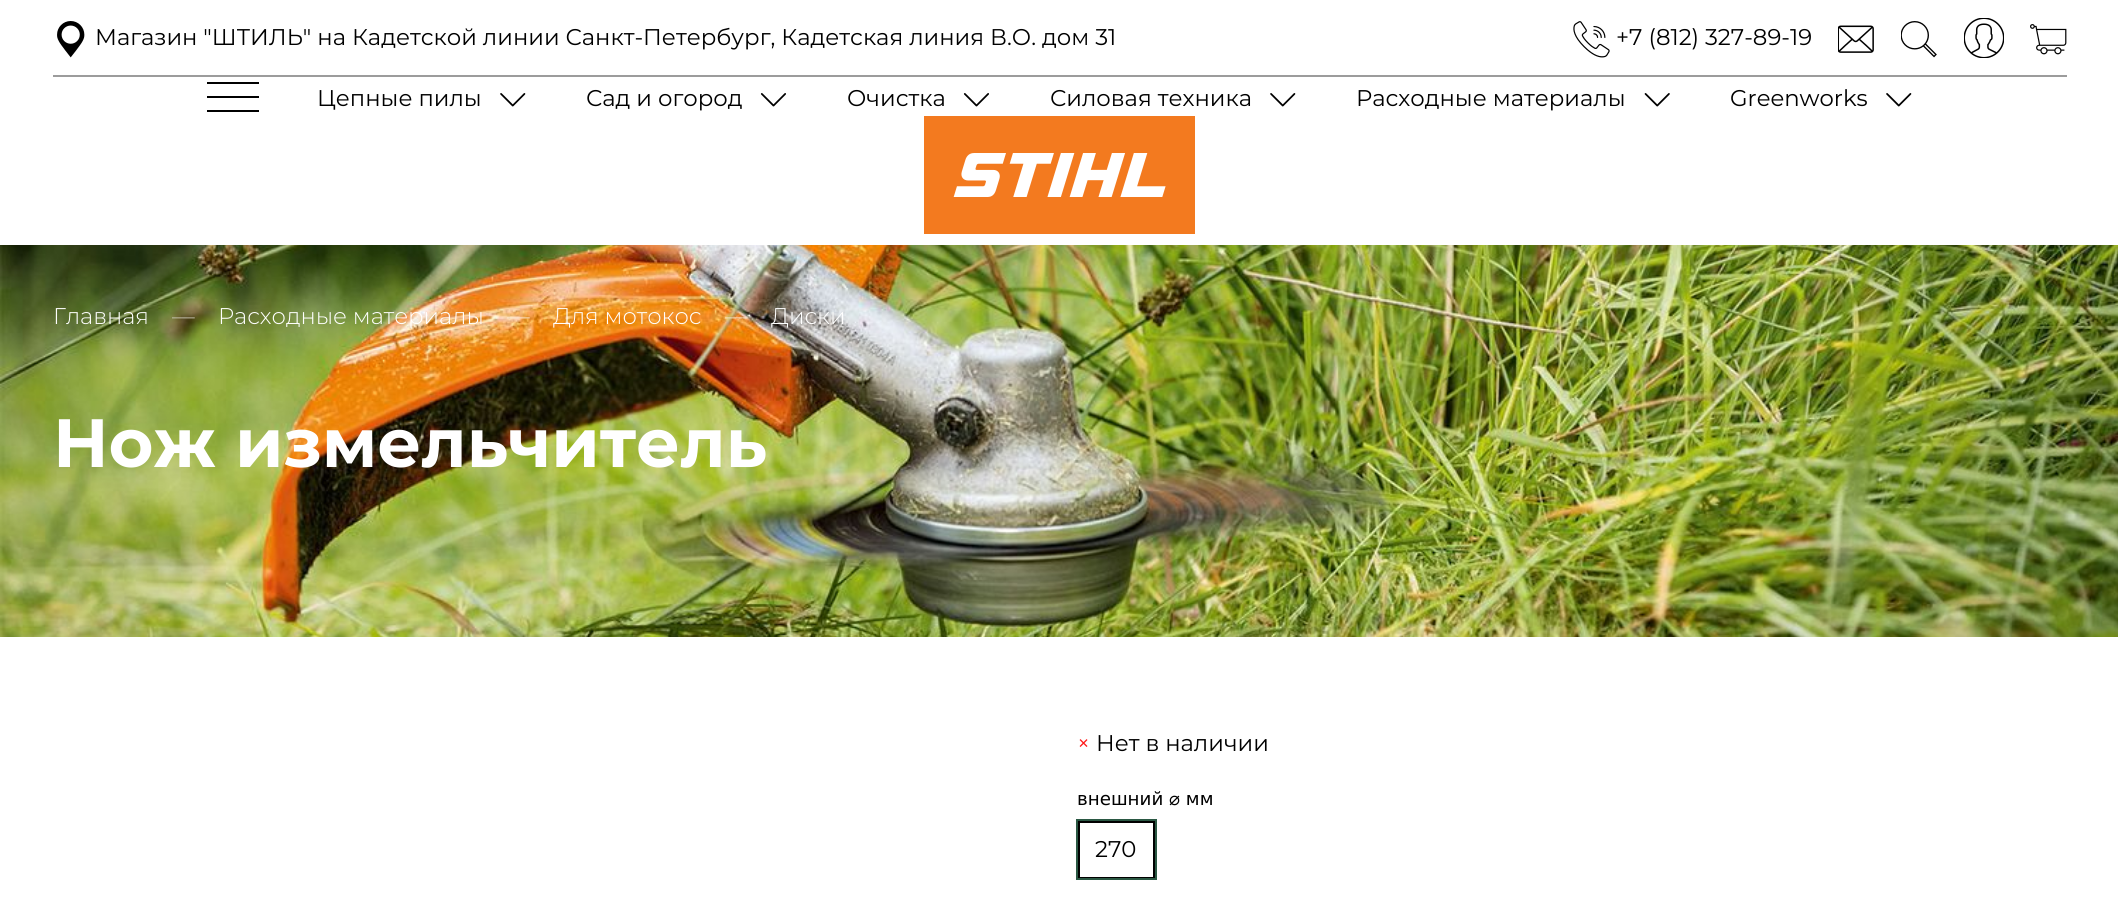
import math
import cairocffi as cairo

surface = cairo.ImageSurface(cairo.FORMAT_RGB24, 2118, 917)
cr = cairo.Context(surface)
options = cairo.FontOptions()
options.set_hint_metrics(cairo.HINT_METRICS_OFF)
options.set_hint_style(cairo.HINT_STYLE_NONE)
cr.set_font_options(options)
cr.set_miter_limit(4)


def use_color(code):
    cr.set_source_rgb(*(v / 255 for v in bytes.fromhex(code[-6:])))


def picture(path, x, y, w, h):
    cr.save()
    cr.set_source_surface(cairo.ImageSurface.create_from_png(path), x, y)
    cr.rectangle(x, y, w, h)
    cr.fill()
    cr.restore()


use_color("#ffffff")
cr.paint()
picture("img1.png", 57, 21, 28, 37)
cr.select_font_face("Montserrat")
cr.set_font_size(22.75)
use_color("#000000")
cr.move_to(95, 45)
cr.show_text("Магазин \"ШТИЛЬ\" на Кадетской линии Санкт-Петербург, Кадетская линия В.О. дом 31")
picture("img2.png", 1573, 21, 37, 37)
cr.move_to(1616, 45)
cr.show_text("+7 (812) 327-89-19")
picture("img3.png", 1838, 25, 36, 28)
picture("img4.png", 1901, 21, 36, 37)
picture("img5.png", 1964, 18, 40, 40)
picture("img6.png", 2030, 24, 37, 31)
use_color("#9c9c9c")
cr.rectangle(53, 75, 2014, 2)
cr.fill()
use_color("#000000")
cr.rectangle(207, 82, 52, 2)
cr.fill()
cr.rectangle(207, 96, 52, 2)
cr.fill()
cr.rectangle(207, 110, 52, 2)
cr.fill()
cr.move_to(317, 106)
cr.show_text("Цепные пилы")
picture("img7.png", 500, 93, 26, 14)
cr.move_to(586, 106)
cr.show_text("Сад и огород")
picture("img8.png", 760, 93, 26, 14)
cr.move_to(847, 106)
cr.show_text("Очистка")
picture("img8.png", 963, 93, 26, 14)
cr.move_to(1050, 106)
cr.show_text("Силовая техника")
picture("img7.png", 1270, 93, 26, 14)
cr.move_to(1356, 106)
cr.show_text("Расходные материалы")
picture("img9.png", 1644, 93, 26, 14)
cr.move_to(1730, 106)
cr.show_text("Greenworks")
picture("img7.png", 1886, 93, 26, 14)
picture("img10.png", 924, 116, 271, 118)
picture("img11.png", 0, 245, 2118, 392)
cr.select_font_face("Montserrat Light")
use_color("#ffffff")
cr.move_to(53, 324)
cr.show_text("Главная")
use_color("#d0cebf")
cr.move_to(172, 324)
cr.show_text("—")
use_color("#ffffff")
cr.move_to(218, 324)
cr.show_text("Расходные материалы")
use_color("#fcebd8")
cr.move_to(507, 324)
cr.show_text("—")
use_color("#ffffff")
cr.move_to(553, 324)
cr.show_text("Для мотокос")
use_color("#f7e4cd")
cr.move_to(725, 324)
cr.show_text("—")
use_color("#ffffff")
cr.move_to(771, 324)
cr.show_text("Диски")
cr.select_font_face("Montserrat", cairo.FONT_SLANT_NORMAL, cairo.FONT_WEIGHT_BOLD)
cr.set_font_size(68.25)
cr.move_to(53, 467)
cr.show_text("Нож измельчитель")
cr.select_font_face("Montserrat")
cr.set_font_size(22.75)
use_color("#ff1b1b")
cr.move_to(1077, 751)
cr.show_text("×")
use_color("#000000")
cr.move_to(1096, 751)
cr.show_text("Нет в наличии")
cr.select_font_face("DejaVu Sans")
cr.set_font_size(18.25)
cr.move_to(1077, 805)
cr.show_text("внешний ⌀ мм")
cr.rectangle(1079, 822, 75, 56)
cr.stroke()
cr.rectangle(1077, 820, 79, 59)
use_color("#2a5843")
cr.stroke()
cr.select_font_face("Montserrat")
cr.set_font_size(22.75)
use_color("#000000")
cr.move_to(1095, 857)
cr.show_text("270")
surface.write_to_png("result.png")
